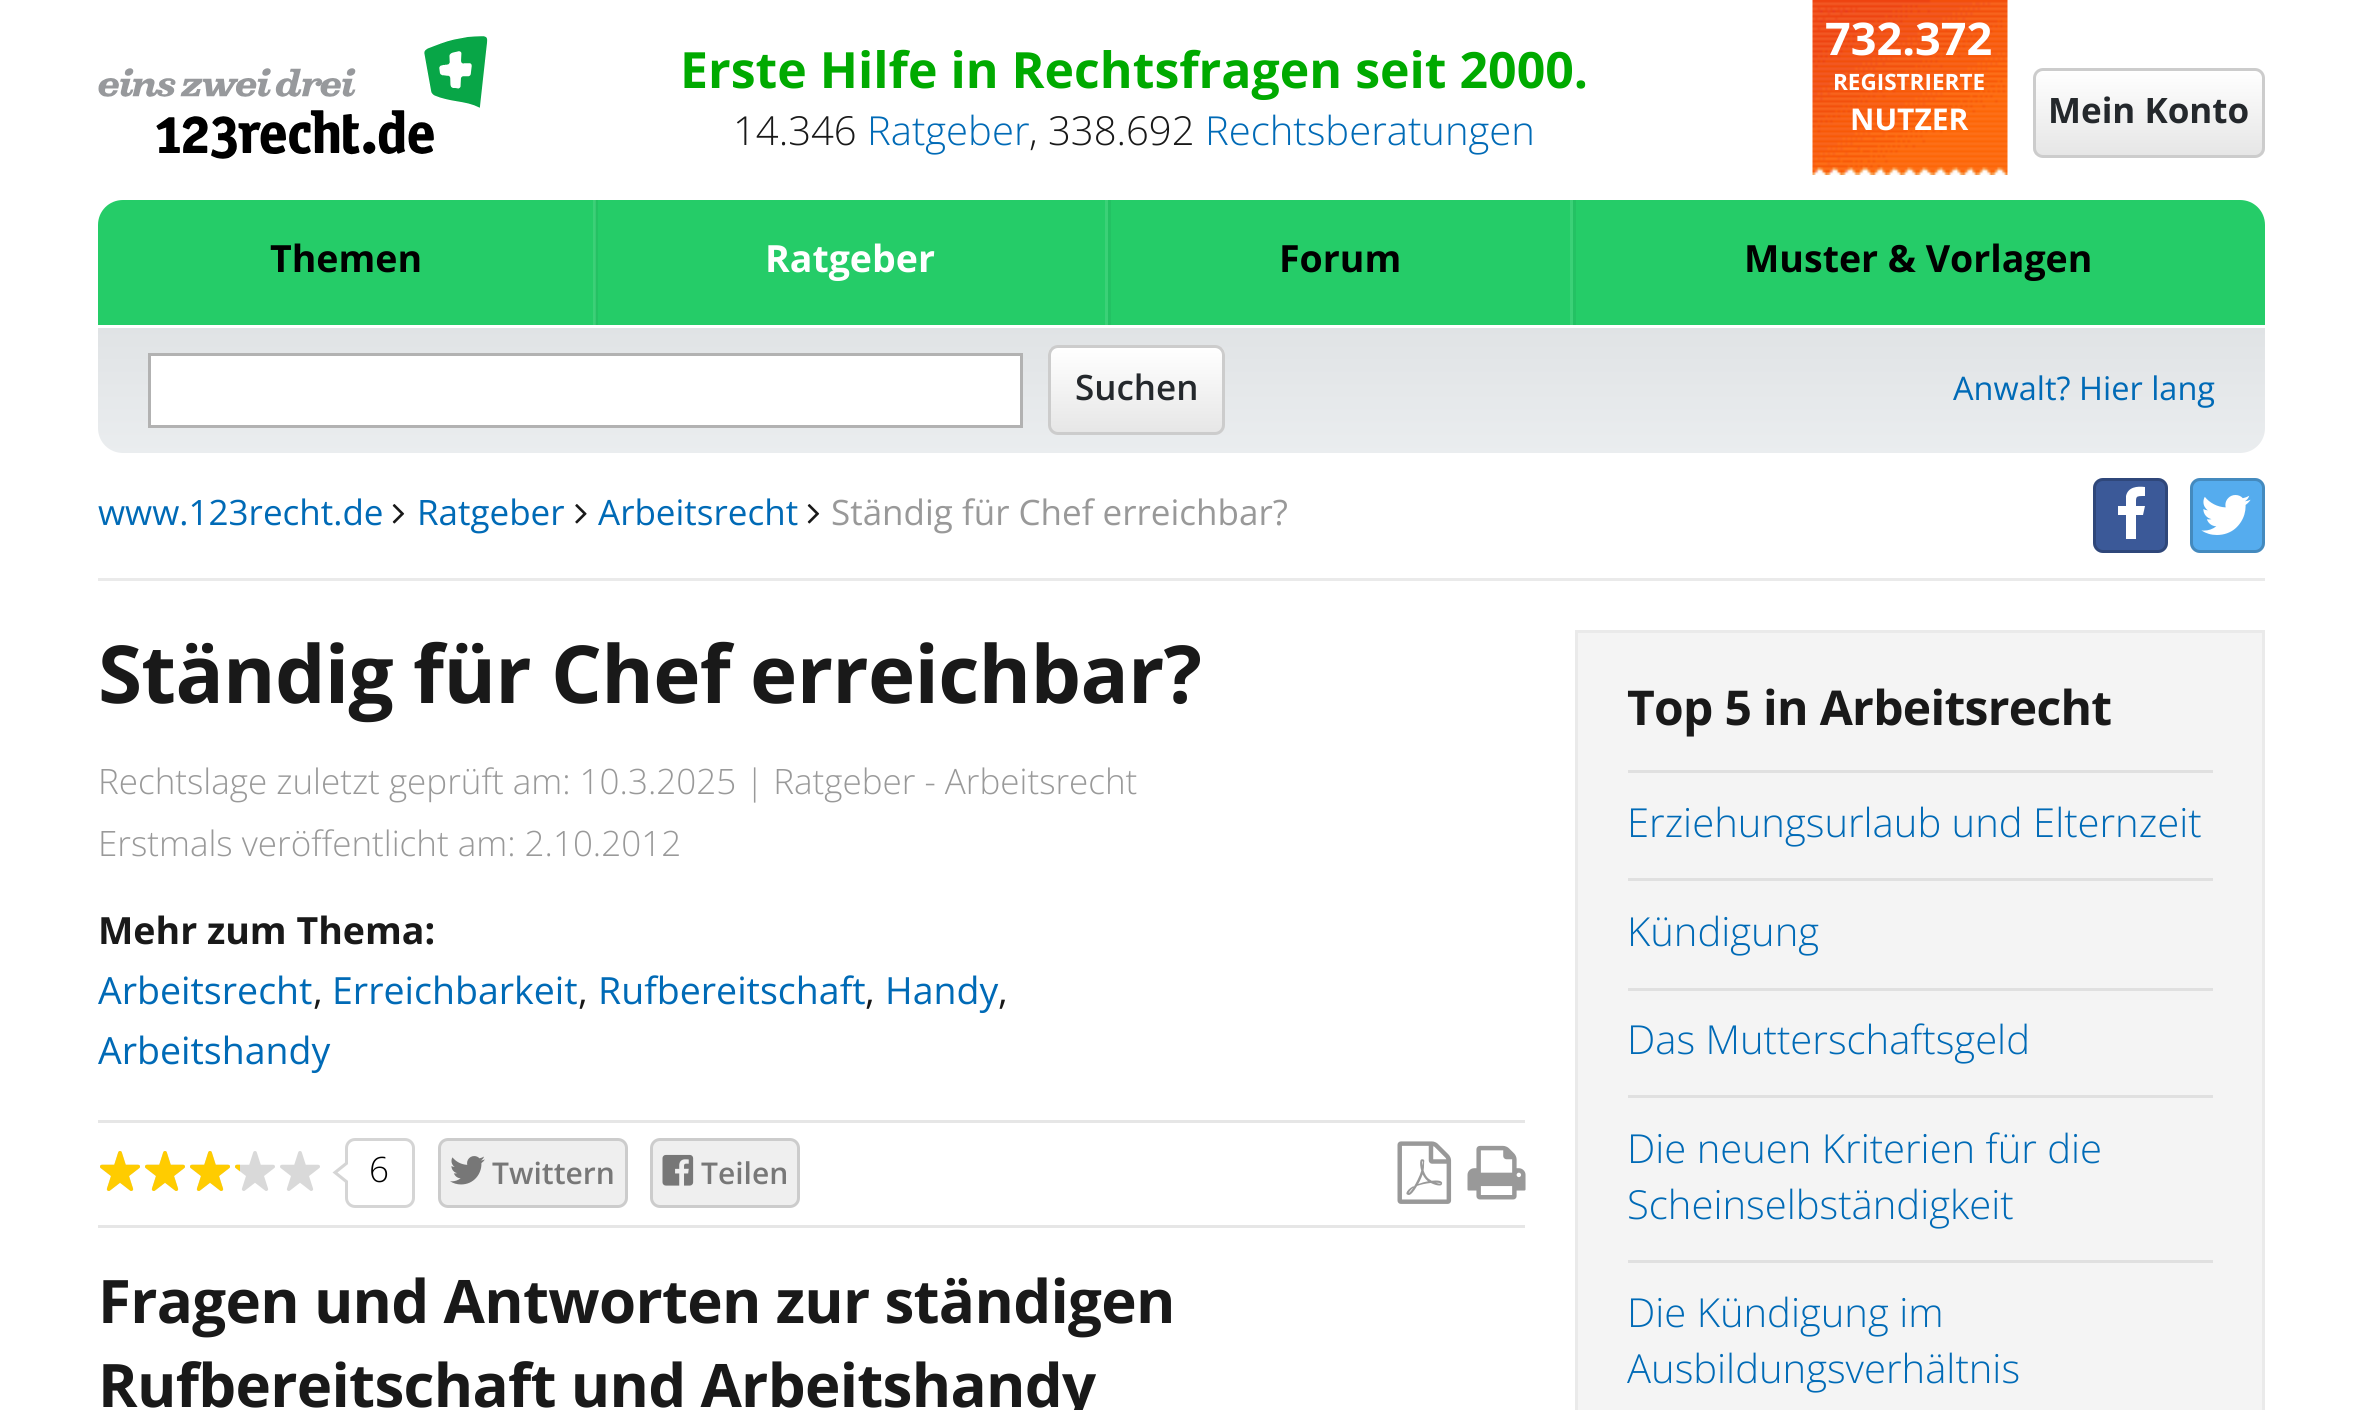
import math
import cairocffi as cairo

surface = cairo.ImageSurface(cairo.FORMAT_RGB24, 2362, 1410)
cr = cairo.Context(surface)
options = cairo.FontOptions()
options.set_hint_metrics(cairo.HINT_METRICS_OFF)
options.set_hint_style(cairo.HINT_STYLE_NONE)
cr.set_font_options(options)
cr.set_miter_limit(4)


def use_color(code):
    cr.set_source_rgb(*(v / 255 for v in bytes.fromhex(code[-6:])))


def spaced_text(x, y, s, letter, word):
    cr.move_to(x, y)
    for ch in s:
        cr.show_text(ch)
        cr.rel_move_to(letter + word * (ch == ' '), 0)


def round_rect(x, y, w, h, r):
    cr.new_sub_path()
    for i, (u, v) in enumerate([(x + w - r, y + h - r), (x + r, y + h - r), (x + r, y + r), (x + w - r, y + r)]):
        cr.arc(u, v, r, i * math.pi / 2, (i + 1) * math.pi / 2)
    cr.close_path()


def picture(path, x, y, w, h):
    cr.save()
    cr.set_source_surface(cairo.ImageSurface.create_from_png(path), x, y)
    cr.rectangle(x, y, w, h)
    cr.fill()
    cr.restore()


use_color("#ffffff")
cr.paint()
picture("img1.png", 98, 36, 390, 123)
cr.select_font_face("Open Sans", cairo.FONT_SLANT_NORMAL, cairo.FONT_WEIGHT_BOLD)
cr.set_font_size(50)
use_color("#00aa00")
cr.move_to(680, 88)
cr.show_text("Erste Hilfe in Rechtsfragen seit 2000.")
cr.select_font_face("Open Sans Light")
cr.set_font_size(40)
use_color("#191919")
cr.move_to(733, 145)
cr.show_text("14.346")
use_color("#006ab6")
cr.move_to(867, 145)
cr.show_text("Ratgeber")
use_color("#191919")
cr.move_to(1029, 145)
cr.show_text(", 338.692")
use_color("#006ab6")
cr.move_to(1205, 145)
cr.show_text("Rechtsberatungen")
picture("img2.png", 1812, 0, 196, 175)
cr.select_font_face("Open Sans", cairo.FONT_SLANT_NORMAL, cairo.FONT_WEIGHT_BOLD)
cr.set_font_size(45)
use_color("#ffffff")
cr.move_to(1825, 55)
cr.show_text("732.372")
cr.set_font_size(22.5)
cr.move_to(1833, 90)
cr.show_text("REGISTRIERTE")
cr.set_font_size(30)
cr.move_to(1850, 130)
cr.show_text("NUTZER")
cr.save()
round_rect(2033, 68, 232, 90, 10)
cr.clip()
gradient = cairo.LinearGradient(2149, 70, 2149, 155)
gradient.add_color_stop_rgba(0, 1, 1, 1, 1)
gradient.add_color_stop_rgba(1, 0.902, 0.902, 0.902, 1)
cr.set_source(gradient)
cr.rectangle(2033, 70, 232, 85)
cr.fill()
cr.restore()
round_rect(2034.5, 69.5, 229, 87, 8.5)
use_color("#cccccc")
cr.set_line_width(3)
cr.stroke()
cr.set_font_size(35)
use_color("#24282c")
cr.move_to(2048, 123)
cr.show_text("Mein Konto")
use_color("#25cc68")
cr.new_path()
cr.move_to(123, 200)
cr.line_to(2240, 200)
cr.curve_to(2254, 200, 2265, 211, 2265, 225)
cr.line_to(2265, 325)
cr.line_to(98, 325)
cr.line_to(98, 225)
cr.curve_to(98, 211, 109, 200, 123, 200)
cr.close_path()
cr.fill()
use_color("#3bd177")
cr.rectangle(593, 200, 2, 125)
cr.fill()
cr.set_font_size(37.5)
use_color("#000000")
cr.move_to(270, 272)
cr.show_text("Themen")
use_color("#23c263")
cr.rectangle(596, 200, 2, 125)
cr.fill()
use_color("#39c873")
cr.rectangle(595, 200, 1, 125)
cr.fill()
use_color("#ffffff")
cr.move_to(765, 272)
cr.show_text("Ratgeber")
use_color("#23c263")
cr.rectangle(1108, 200, 3, 125)
cr.fill()
use_color("#3bd177")
cr.rectangle(1105, 200, 3, 125)
cr.fill()
use_color("#000000")
cr.move_to(1279, 272)
cr.show_text("Forum")
use_color("#23c263")
cr.rectangle(1573, 200, 3, 125)
cr.fill()
use_color("#3bd177")
cr.rectangle(1570, 200, 3, 125)
cr.fill()
use_color("#000000")
cr.move_to(1744, 272)
cr.show_text("Muster & Vorlagen")
gradient = cairo.LinearGradient(1181, 327, 1181, 453)
gradient.add_color_stop_rgba(0, 0.878, 0.89, 0.898, 1)
gradient.add_color_stop_rgba(1, 0.918, 0.929, 0.937, 1)
cr.set_source(gradient)
cr.new_path()
cr.move_to(98, 328)
cr.line_to(2265, 328)
cr.line_to(2265, 428)
cr.curve_to(2265, 442, 2254, 453, 2240, 453)
cr.line_to(123, 453)
cr.curve_to(109, 453, 98, 442, 98, 428)
cr.close_path()
cr.fill()
use_color("#ffffff")
cr.rectangle(149.5, 354.5, 872, 72)
cr.fill_preserve()
use_color("#b2b2b2")
cr.stroke()
cr.save()
round_rect(1048, 345, 177, 90, 10)
cr.clip()
gradient = cairo.LinearGradient(1136, 348, 1136, 433)
gradient.add_color_stop_rgba(0, 1, 1, 1, 1)
gradient.add_color_stop_rgba(1, 0.902, 0.902, 0.902, 1)
cr.set_source(gradient)
cr.rectangle(1048, 348, 177, 85)
cr.fill()
cr.restore()
round_rect(1049.5, 346.5, 174, 87, 8.5)
use_color("#cccccc")
cr.stroke()
cr.select_font_face("Open Sans SemiBold")
cr.set_font_size(35)
use_color("#24282c")
cr.move_to(1075, 400)
cr.show_text("Suchen")
cr.select_font_face("Open Sans")
cr.set_font_size(32.5)
use_color("#006ab6")
cr.move_to(1953, 400)
cr.show_text("Anwalt? Hier lang")
cr.set_font_size(35)
cr.move_to(98, 525)
cr.show_text("www.123recht.de")
picture("img3.png", 392, 504, 13, 20)
cr.move_to(417, 525)
cr.show_text("Ratgeber")
picture("img4.png", 575, 504, 12, 20)
cr.move_to(598, 525)
cr.show_text("Arbeitsrecht")
picture("img3.png", 807, 504, 13, 20)
use_color("#999999")
cr.move_to(831, 525)
cr.show_text("Ständig für Chef erreichbar?")
use_color("#3b5998")
round_rect(2093, 478, 75, 75, 10)
cr.fill()
round_rect(2094.5, 479.5, 72, 72, 8.5)
cr.set_source_rgba(0, 0, 0, 0.2)
cr.stroke()
use_color("#ffffff")
cr.new_path()
cr.move_to(2145, 487)
cr.line_to(2145, 496)
cr.curve_to(2135, 496, 2136, 496, 2136, 506)
cr.line_to(2145, 506)
cr.line_to(2143, 515)
cr.line_to(2136, 515)
cr.line_to(2136, 539)
cr.line_to(2126, 539)
cr.line_to(2126, 515)
cr.line_to(2118, 515)
cr.line_to(2118, 506)
cr.line_to(2126, 506)
cr.line_to(2126, 496)
cr.curve_to(2128, 487, 2137, 486, 2145, 487)
cr.close_path()
cr.fill()
use_color("#55acee")
round_rect(2190, 478, 75, 75, 10)
cr.fill()
round_rect(2191.5, 479.5, 72, 72, 8.5)
cr.set_source_rgba(0, 0, 0, 0.2)
cr.stroke()
picture("img5.png", 2201, 495, 50, 40)
use_color("#eaeaea")
cr.rectangle(98, 578, 2167, 3)
cr.fill()
cr.select_font_face("Open Sans", cairo.FONT_SLANT_NORMAL, cairo.FONT_WEIGHT_BOLD)
cr.set_font_size(80)
use_color("#191919")
spaced_text(98, 703, "Ständig für Chef erreichbar?", -0.7, 0)
cr.select_font_face("Open Sans Light")
cr.set_font_size(35)
use_color("#999999")
cr.move_to(98, 794)
cr.show_text("Rechtslage zuletzt geprüft am: 10.3.2025 | Ratgeber - Arbeitsrecht")
cr.move_to(98, 856)
cr.show_text("Erstmals veröffentlicht am: 2.10.2012")
cr.select_font_face("Open Sans", cairo.FONT_SLANT_NORMAL, cairo.FONT_WEIGHT_BOLD)
cr.set_font_size(37.5)
use_color("#191919")
cr.move_to(98, 944)
cr.show_text("Mehr zum Thema:")
cr.select_font_face("Open Sans")
use_color("#006ab6")
cr.move_to(98, 1004)
cr.show_text("Arbeitsrecht")
use_color("#191919")
cr.move_to(313, 1004)
cr.show_text(",")
use_color("#006ab6")
cr.move_to(332, 1004)
cr.show_text("Erreichbarkeit")
use_color("#191919")
cr.move_to(578, 1004)
cr.show_text(",")
use_color("#006ab6")
cr.move_to(598, 1004)
cr.show_text("Rufbereitschaft")
use_color("#191919")
cr.move_to(865, 1004)
cr.show_text(",")
use_color("#006ab6")
cr.move_to(885, 1004)
cr.show_text("Handy")
use_color("#191919")
cr.move_to(998, 1004)
cr.show_text(",")
use_color("#006ab6")
cr.move_to(98, 1064)
cr.show_text("Arbeitshandy")
use_color("#e6e6e6")
cr.rectangle(98, 1120, 1427, 3)
cr.fill()
cr.rectangle(98, 1225, 1427, 3)
cr.fill()
picture("img6.png", 100, 1151, 40, 40)
picture("img7.png", 100, 1151, 40, 40)
picture("img6.png", 145, 1151, 40, 40)
picture("img7.png", 145, 1151, 40, 40)
picture("img6.png", 190, 1151, 40, 40)
picture("img7.png", 190, 1151, 40, 40)
picture("img6.png", 235, 1151, 40, 40)
picture("img8.png", 235, 1164, 5, 8)
picture("img6.png", 280, 1151, 40, 40)
use_color("#d5d5d5")
cr.new_path()
cr.move_to(345, 1162.5)
cr.line_to(345, 1182.5)
cr.line_to(332.5, 1172.5)
cr.close_path()
cr.fill()
round_rect(346.5, 1139.5, 67, 67, 8.5)
cr.stroke()
use_color("#ffffff")
cr.new_path()
cr.move_to(350, 1162.5)
cr.line_to(350, 1182.5)
cr.line_to(337.5, 1172.5)
cr.close_path()
cr.fill()
cr.select_font_face("Open Sans Light")
cr.set_font_size(35)
use_color("#000000")
cr.move_to(369, 1182)
cr.show_text("6")
use_color("#efefef")
round_rect(439.5, 1139.5, 187, 67, 8.5)
cr.fill_preserve()
use_color("#cccccc")
cr.stroke()
picture("img9.png", 450, 1156, 35, 29)
cr.select_font_face("Open Sans SemiBold")
cr.set_font_size(30)
use_color("#777777")
cr.move_to(492, 1184)
cr.show_text("Twittern")
use_color("#efefef")
round_rect(651.5, 1139.5, 147, 67, 8.5)
cr.fill_preserve()
use_color("#cccccc")
cr.stroke()
picture("img10.png", 662, 1154, 32, 32)
use_color("#777777")
cr.move_to(701, 1184)
cr.show_text("Teilen")
picture("img11.png", 1397, 1141, 55, 63)
picture("img12.png", 1467, 1145, 59, 55)
cr.select_font_face("Open Sans", cairo.FONT_SLANT_NORMAL, cairo.FONT_WEIGHT_BOLD)
cr.set_font_size(60)
use_color("#191919")
spaced_text(98, 1323, "Fragen und Antworten zur ständigen", -0.7, 0)
spaced_text(98, 1407, "Rufbereitschaft und Arbeitshandy", -0.7, 0)
use_color("#f4f4f4")
cr.rectangle(1576.5, 631.5, 687, 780)
cr.fill_preserve()
use_color("#eaeaea")
cr.stroke()
use_color("#e0e0e0")
cr.rectangle(1628, 770, 585, 3)
cr.fill()
cr.set_font_size(48)
use_color("#191919")
spaced_text(1627, 725, "Top 5 in Arbeitsrecht", -0.7, 0)
use_color("#e0e0e0")
cr.rectangle(1628, 878, 585, 3)
cr.fill()
cr.select_font_face("Open Sans Light")
cr.set_font_size(40)
use_color("#006ab6")
cr.move_to(1627, 837)
cr.show_text("Erziehungsurlaub und Elternzeit")
use_color("#e0e0e0")
cr.rectangle(1628, 988, 585, 3)
cr.fill()
use_color("#006ab6")
cr.move_to(1627, 946)
cr.show_text("Kündigung")
use_color("#e0e0e0")
cr.rectangle(1628, 1095, 585, 3)
cr.fill()
use_color("#006ab6")
cr.move_to(1627, 1054)
cr.show_text("Das Mutterschaftsgeld")
use_color("#e0e0e0")
cr.rectangle(1628, 1260, 585, 3)
cr.fill()
use_color("#006ab6")
cr.move_to(1627, 1163)
cr.show_text("Die neuen Kriterien für die")
cr.move_to(1627, 1219)
cr.show_text("Scheinselbständigkeit")
cr.move_to(1627, 1327)
cr.show_text("Die Kündigung im")
cr.move_to(1627, 1383)
cr.show_text("Ausbildungsverhältnis")
surface.write_to_png("result.png")
